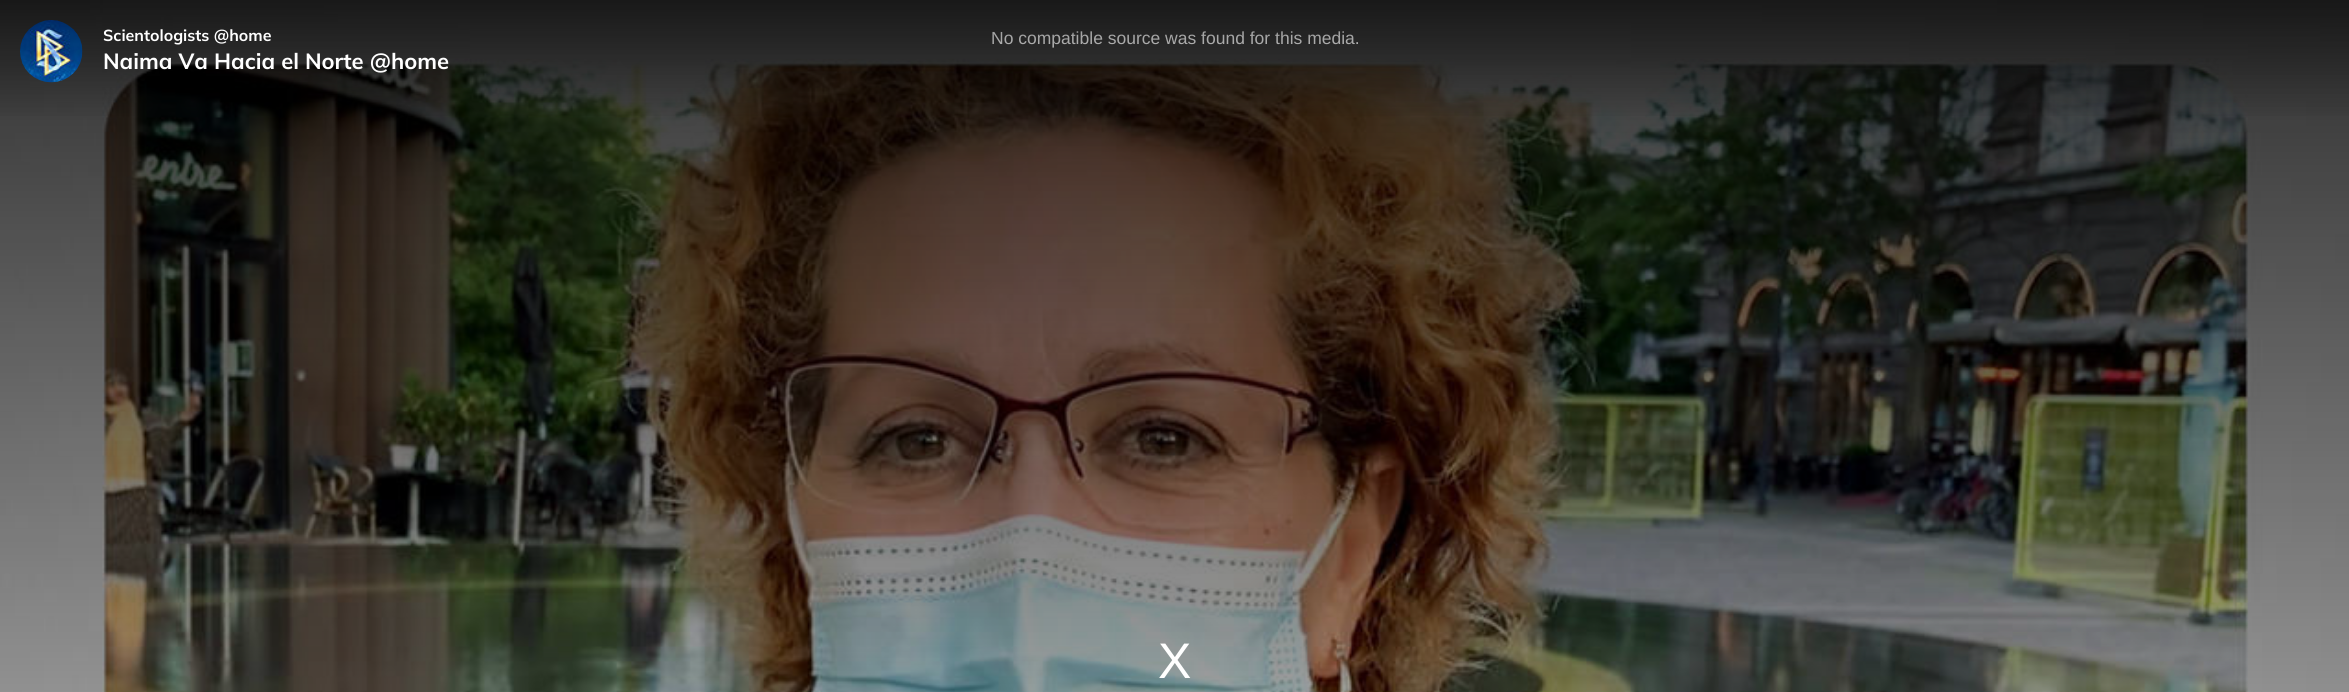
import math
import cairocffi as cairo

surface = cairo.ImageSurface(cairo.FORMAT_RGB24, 2349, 692)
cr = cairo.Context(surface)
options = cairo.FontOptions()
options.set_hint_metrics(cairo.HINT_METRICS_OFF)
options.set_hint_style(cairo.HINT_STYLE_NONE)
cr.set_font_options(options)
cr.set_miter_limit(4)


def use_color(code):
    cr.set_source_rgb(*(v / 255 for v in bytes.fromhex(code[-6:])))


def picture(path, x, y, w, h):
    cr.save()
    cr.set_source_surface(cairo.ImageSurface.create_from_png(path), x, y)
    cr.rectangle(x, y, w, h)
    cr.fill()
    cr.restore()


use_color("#ffffff")
cr.paint()
picture("img1.png", 0, 0, 2349, 692)
cr.select_font_face("Liberation Sans")
cr.set_font_size(17.5)
use_color("#ffffff")
cr.move_to(991, 44)
cr.show_text("No compatible source was found for this media.")
gradient = cairo.LinearGradient(1175, 0, 1175, 125)
gradient.add_color_stop_rgba(0, 0, 0, 0, 0.5)
gradient.add_color_stop_rgba(1, 0, 0, 0, 0)
cr.set_source(gradient)
cr.rectangle(0, 0, 2349, 116)
cr.fill()
picture("img2.png", 20, 20, 63, 63)
cr.select_font_face("Mulish", cairo.FONT_SLANT_NORMAL, cairo.FONT_WEIGHT_BOLD)
cr.set_font_size(16)
use_color("#ffffff")
cr.move_to(103, 41)
cr.show_text("Scientologists @home")
cr.set_font_size(22)
cr.move_to(103, 69)
cr.show_text("Naima Va Hacia el Norte @home")
cr.select_font_face("Liberation Sans")
cr.set_font_size(50)
cr.move_to(1158, 678)
cr.show_text("X")
surface.write_to_png("result.png")
